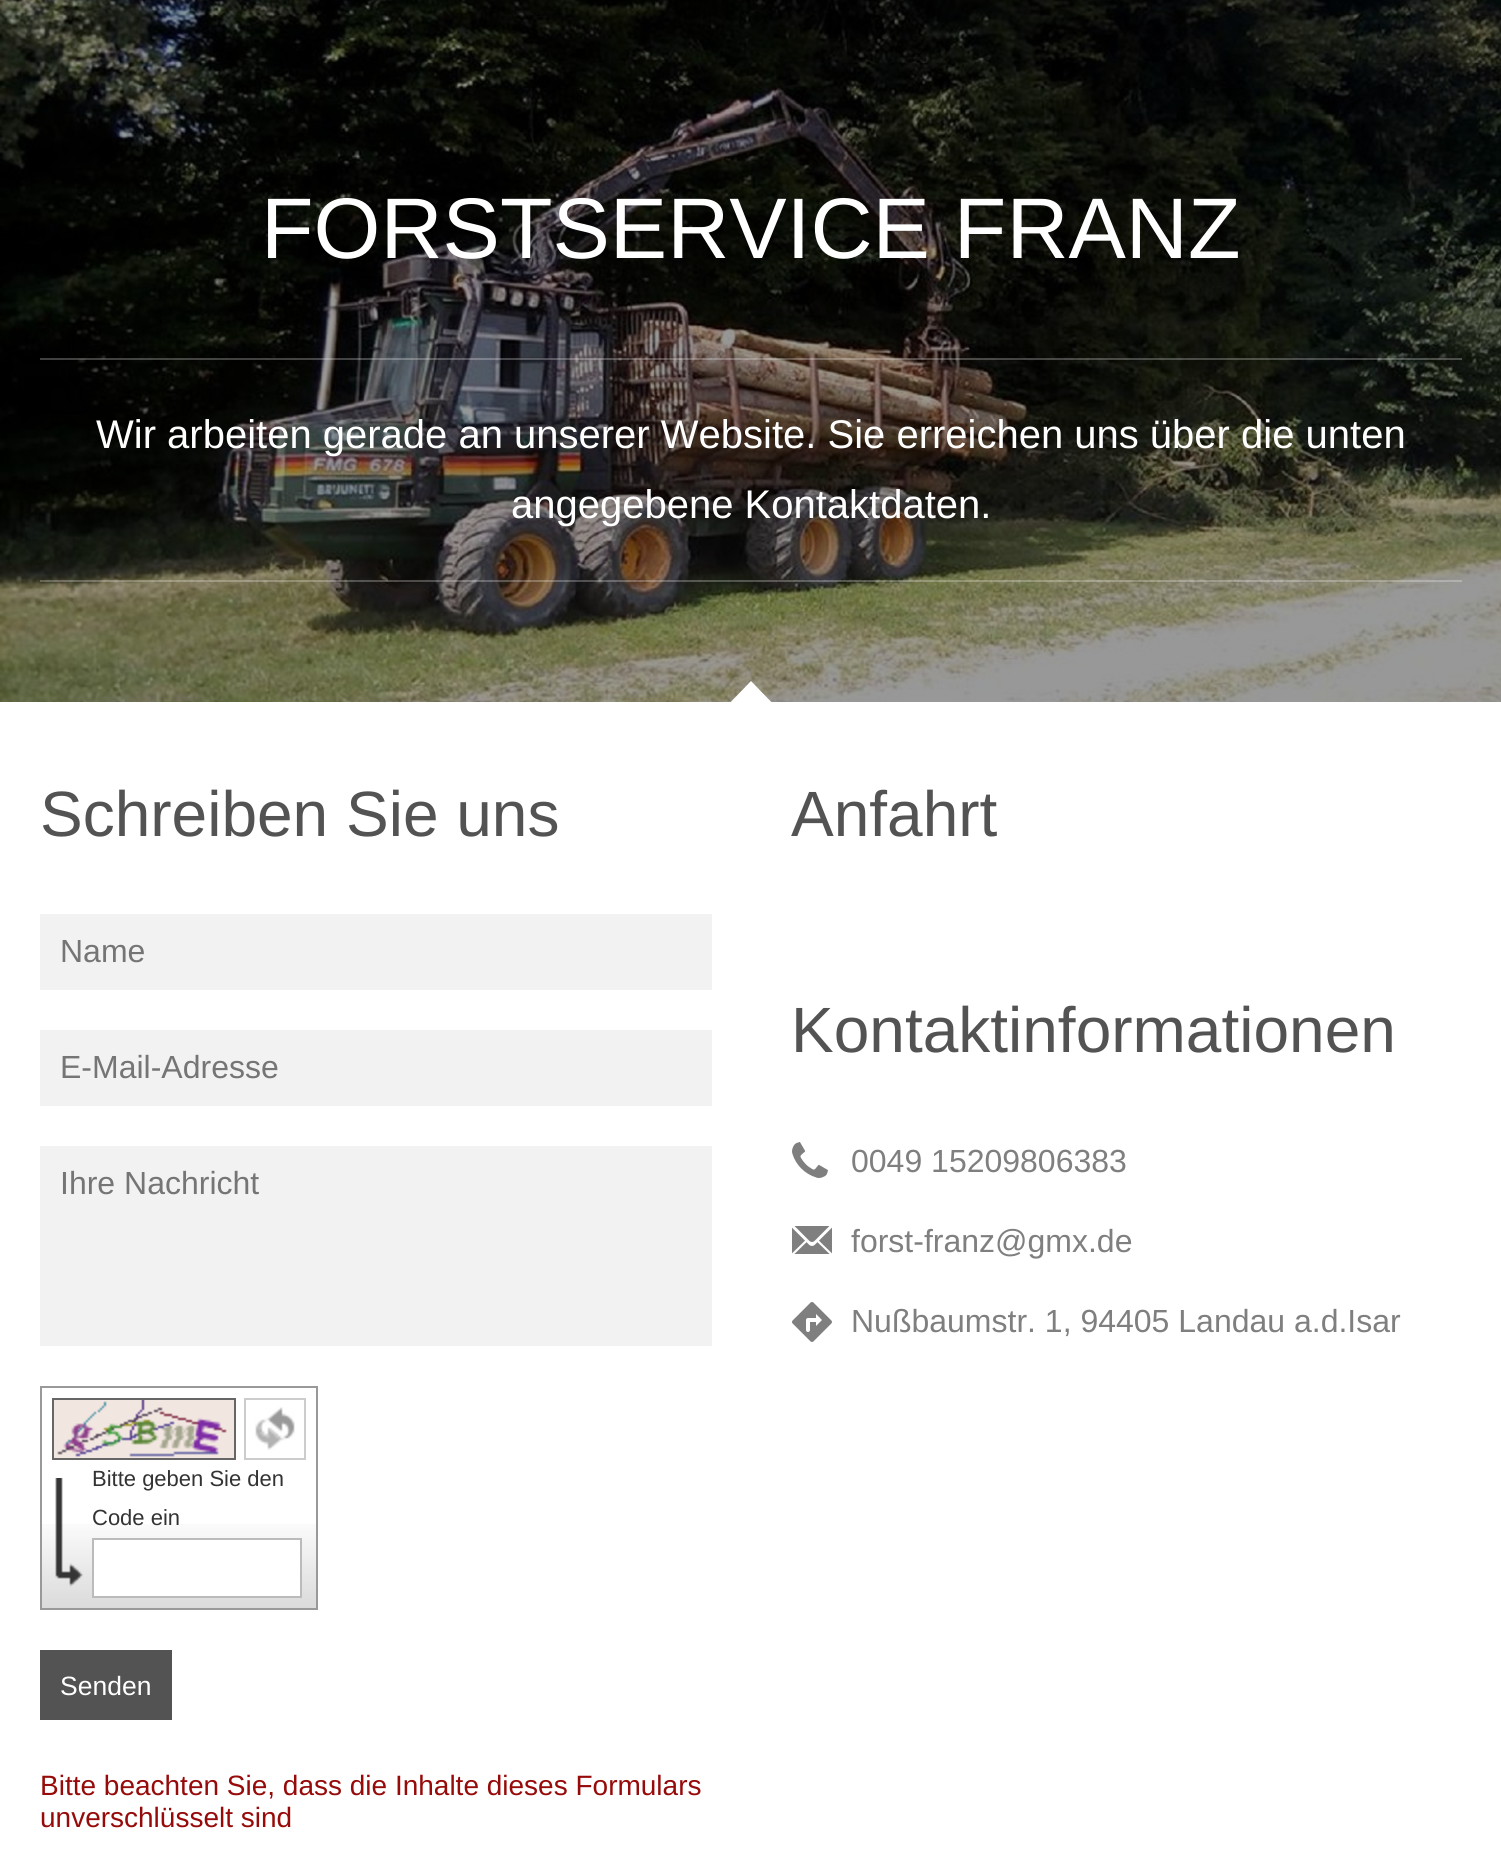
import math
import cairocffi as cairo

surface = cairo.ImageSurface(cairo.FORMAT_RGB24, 1501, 1868)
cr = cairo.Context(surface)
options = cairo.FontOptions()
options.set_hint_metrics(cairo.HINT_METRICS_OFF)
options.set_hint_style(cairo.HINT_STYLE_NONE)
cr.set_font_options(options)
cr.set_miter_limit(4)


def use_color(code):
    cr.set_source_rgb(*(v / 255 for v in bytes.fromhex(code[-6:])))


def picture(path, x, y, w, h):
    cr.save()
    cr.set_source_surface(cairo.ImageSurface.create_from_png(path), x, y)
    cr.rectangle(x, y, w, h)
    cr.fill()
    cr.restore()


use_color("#ffffff")
cr.paint()
picture("img1.png", 0, 0, 1501, 702)
cr.select_font_face("Liberation Sans")
cr.set_font_size(86)
use_color("#ffffff")
cr.move_to(261, 258)
cr.show_text("FORSTSERVICE FRANZ")
cr.set_source_rgba(1, 1, 1, 0.25)
cr.rectangle(40, 358, 1422, 2)
cr.fill()
cr.rectangle(40, 580, 1422, 2)
cr.fill()
cr.set_font_size(40)
use_color("#ffffff")
cr.move_to(96, 448)
cr.show_text("Wir arbeiten gerade an unserer Website. Sie erreichen uns über die unten")
cr.move_to(511, 518)
cr.show_text("angegebene Kontaktdaten.")
cr.new_path()
cr.move_to(751, 681)
cr.line_to(779, 710)
cr.line_to(751, 738)
cr.line_to(723, 710)
cr.close_path()
cr.fill()
cr.set_font_size(64)
use_color("#535353")
cr.move_to(40, 836)
cr.show_text("Schreiben Sie uns")
use_color("#f2f2f2")
cr.rectangle(40, 914, 672, 76)
cr.fill()
cr.set_font_size(32)
use_color("#757575")
cr.move_to(60, 962)
cr.show_text("Name")
use_color("#f2f2f2")
cr.rectangle(40, 1030, 672, 76)
cr.fill()
use_color("#757575")
cr.move_to(60, 1078)
cr.show_text("E-Mail-Adresse")
use_color("#f2f2f2")
cr.rectangle(40, 1146, 672, 200)
cr.fill()
use_color("#757575")
cr.move_to(60, 1194)
cr.show_text("Ihre Nachricht")
picture("img2.png", 42, 1524, 274, 84)
cr.rectangle(41, 1387, 276, 222)
use_color("#999999")
cr.stroke()
cr.rectangle(53, 1399, 182, 60)
use_color("#666666")
cr.stroke()
picture("img3.png", 54, 1400, 180, 58)
picture("img4.png", 255, 1407, 40, 43)
cr.rectangle(245, 1399, 60, 60)
use_color("#cccccc")
cr.stroke()
picture("img5.png", 55, 1478, 28, 109)
cr.set_font_size(22)
use_color("#333333")
cr.move_to(92, 1486)
cr.show_text("Bitte geben Sie den")
cr.move_to(92, 1525)
cr.show_text("Code ein")
use_color("#ffffff")
cr.rectangle(93, 1539, 208, 58)
cr.fill_preserve()
use_color("#bbbbbb")
cr.stroke()
use_color("#535353")
cr.rectangle(40, 1650, 132, 70)
cr.fill()
cr.set_font_size(26.5)
use_color("#ffffff")
cr.move_to(60, 1695)
cr.show_text("Senden")
cr.set_font_size(28)
use_color("#960a0a")
cr.move_to(40, 1795)
cr.show_text("Bitte beachten Sie, dass die Inhalte dieses Formulars")
cr.move_to(40, 1827)
cr.show_text("unverschlüsselt sind")
cr.set_font_size(64)
use_color("#535353")
cr.move_to(791, 836)
cr.show_text("Anfahrt")
cr.move_to(791, 1052)
cr.show_text("Kontaktinformationen")
picture("img6.png", 792, 1142, 36, 36)
cr.set_font_size(32)
use_color("#7f7f7f")
cr.move_to(851, 1172)
cr.show_text("0049 15209806383")
picture("img7.png", 792, 1226, 40, 28)
cr.move_to(851, 1252)
cr.show_text("forst-franz@gmx.de")
picture("img8.png", 792, 1302, 40, 40)
cr.move_to(851, 1332)
cr.show_text("Nußbaumstr. 1, 94405 Landau a.d.Isar")
surface.write_to_png("result.png")
